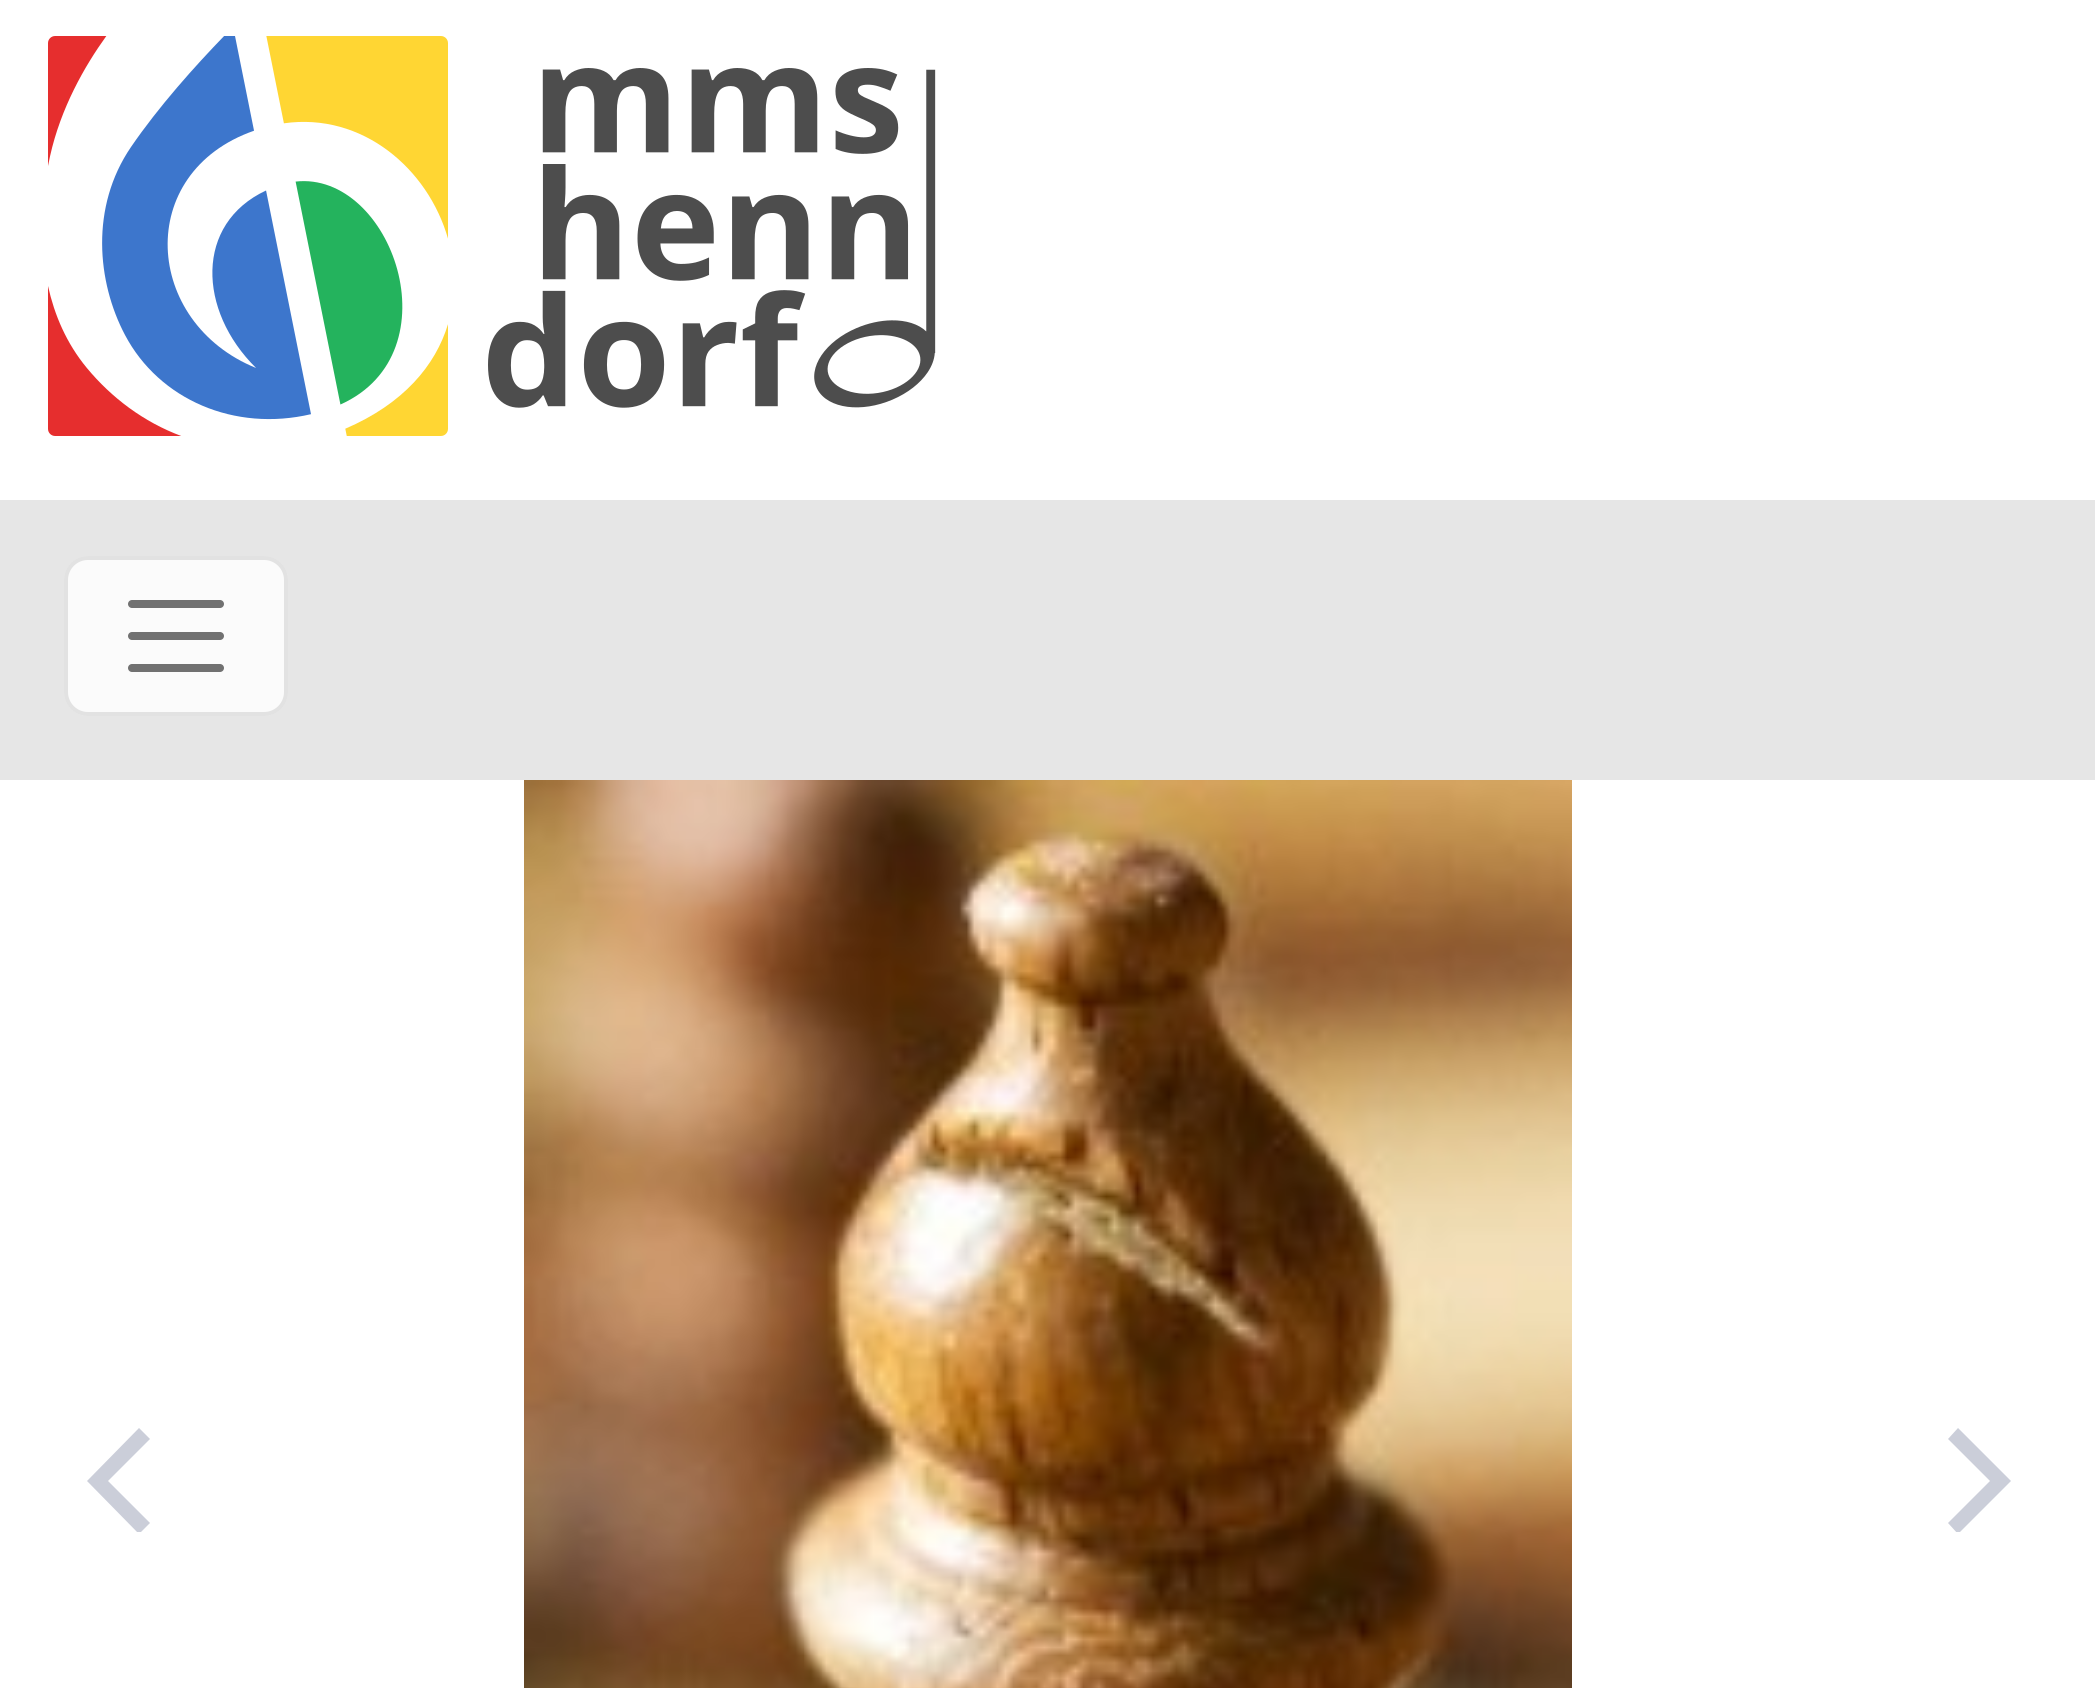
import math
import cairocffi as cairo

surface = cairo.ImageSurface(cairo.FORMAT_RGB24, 2095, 1688)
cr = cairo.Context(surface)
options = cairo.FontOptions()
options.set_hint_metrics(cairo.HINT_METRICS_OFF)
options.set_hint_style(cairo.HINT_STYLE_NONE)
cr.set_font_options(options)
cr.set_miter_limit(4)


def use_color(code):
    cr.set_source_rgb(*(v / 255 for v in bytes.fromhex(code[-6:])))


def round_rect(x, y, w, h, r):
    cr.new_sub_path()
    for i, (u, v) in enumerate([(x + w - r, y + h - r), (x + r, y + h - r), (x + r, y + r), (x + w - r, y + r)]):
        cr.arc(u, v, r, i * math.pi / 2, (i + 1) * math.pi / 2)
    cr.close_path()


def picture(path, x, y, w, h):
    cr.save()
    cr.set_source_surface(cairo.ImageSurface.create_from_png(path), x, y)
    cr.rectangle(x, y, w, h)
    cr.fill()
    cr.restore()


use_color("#ffffff")
cr.paint()
picture("img1.png", 48, 36, 888, 400)
use_color("#e6e6e6")
cr.rectangle(0, 500, 2095, 280)
cr.fill()
use_color("#fbfbfb")
round_rect(64, 556, 224, 160, 24)
cr.fill()
round_rect(66, 558, 220, 156, 22)
cr.set_source_rgba(0, 0, 0, 0.1)
cr.set_line_width(4)
cr.stroke()
cr.new_path()
cr.move_to(132, 604)
cr.line_to(220, 604)
cr.move_to(132, 636)
cr.line_to(220, 636)
cr.move_to(132, 668)
cr.line_to(220, 668)
use_color("#717171")
cr.set_line_width(8)
cr.set_line_cap(cairo.LINE_CAP_ROUND)
cr.stroke()
cr.save()
cr.rectangle(76, 1428, 104, 104)
cr.clip()
use_color("#cbced9")
cr.new_path()
cr.move_to(87, 1481)
cr.line_to(139, 1534)
cr.line_to(150, 1523)
cr.line_to(108, 1481)
cr.line_to(150, 1439)
cr.line_to(139, 1428)
cr.close_path()
cr.fill()
cr.restore()
picture("img2.png", 524, 780, 1048, 908)
cr.save()
cr.rectangle(1916, 1428, 104, 104)
cr.clip()
use_color("#cbced9")
cr.new_path()
cr.move_to(2011, 1481)
cr.line_to(1958, 1428)
cr.line_to(1948, 1439)
cr.line_to(1990, 1481)
cr.line_to(1948, 1523)
cr.line_to(1958, 1534)
cr.close_path()
cr.fill()
cr.restore()
surface.write_to_png("result.png")
